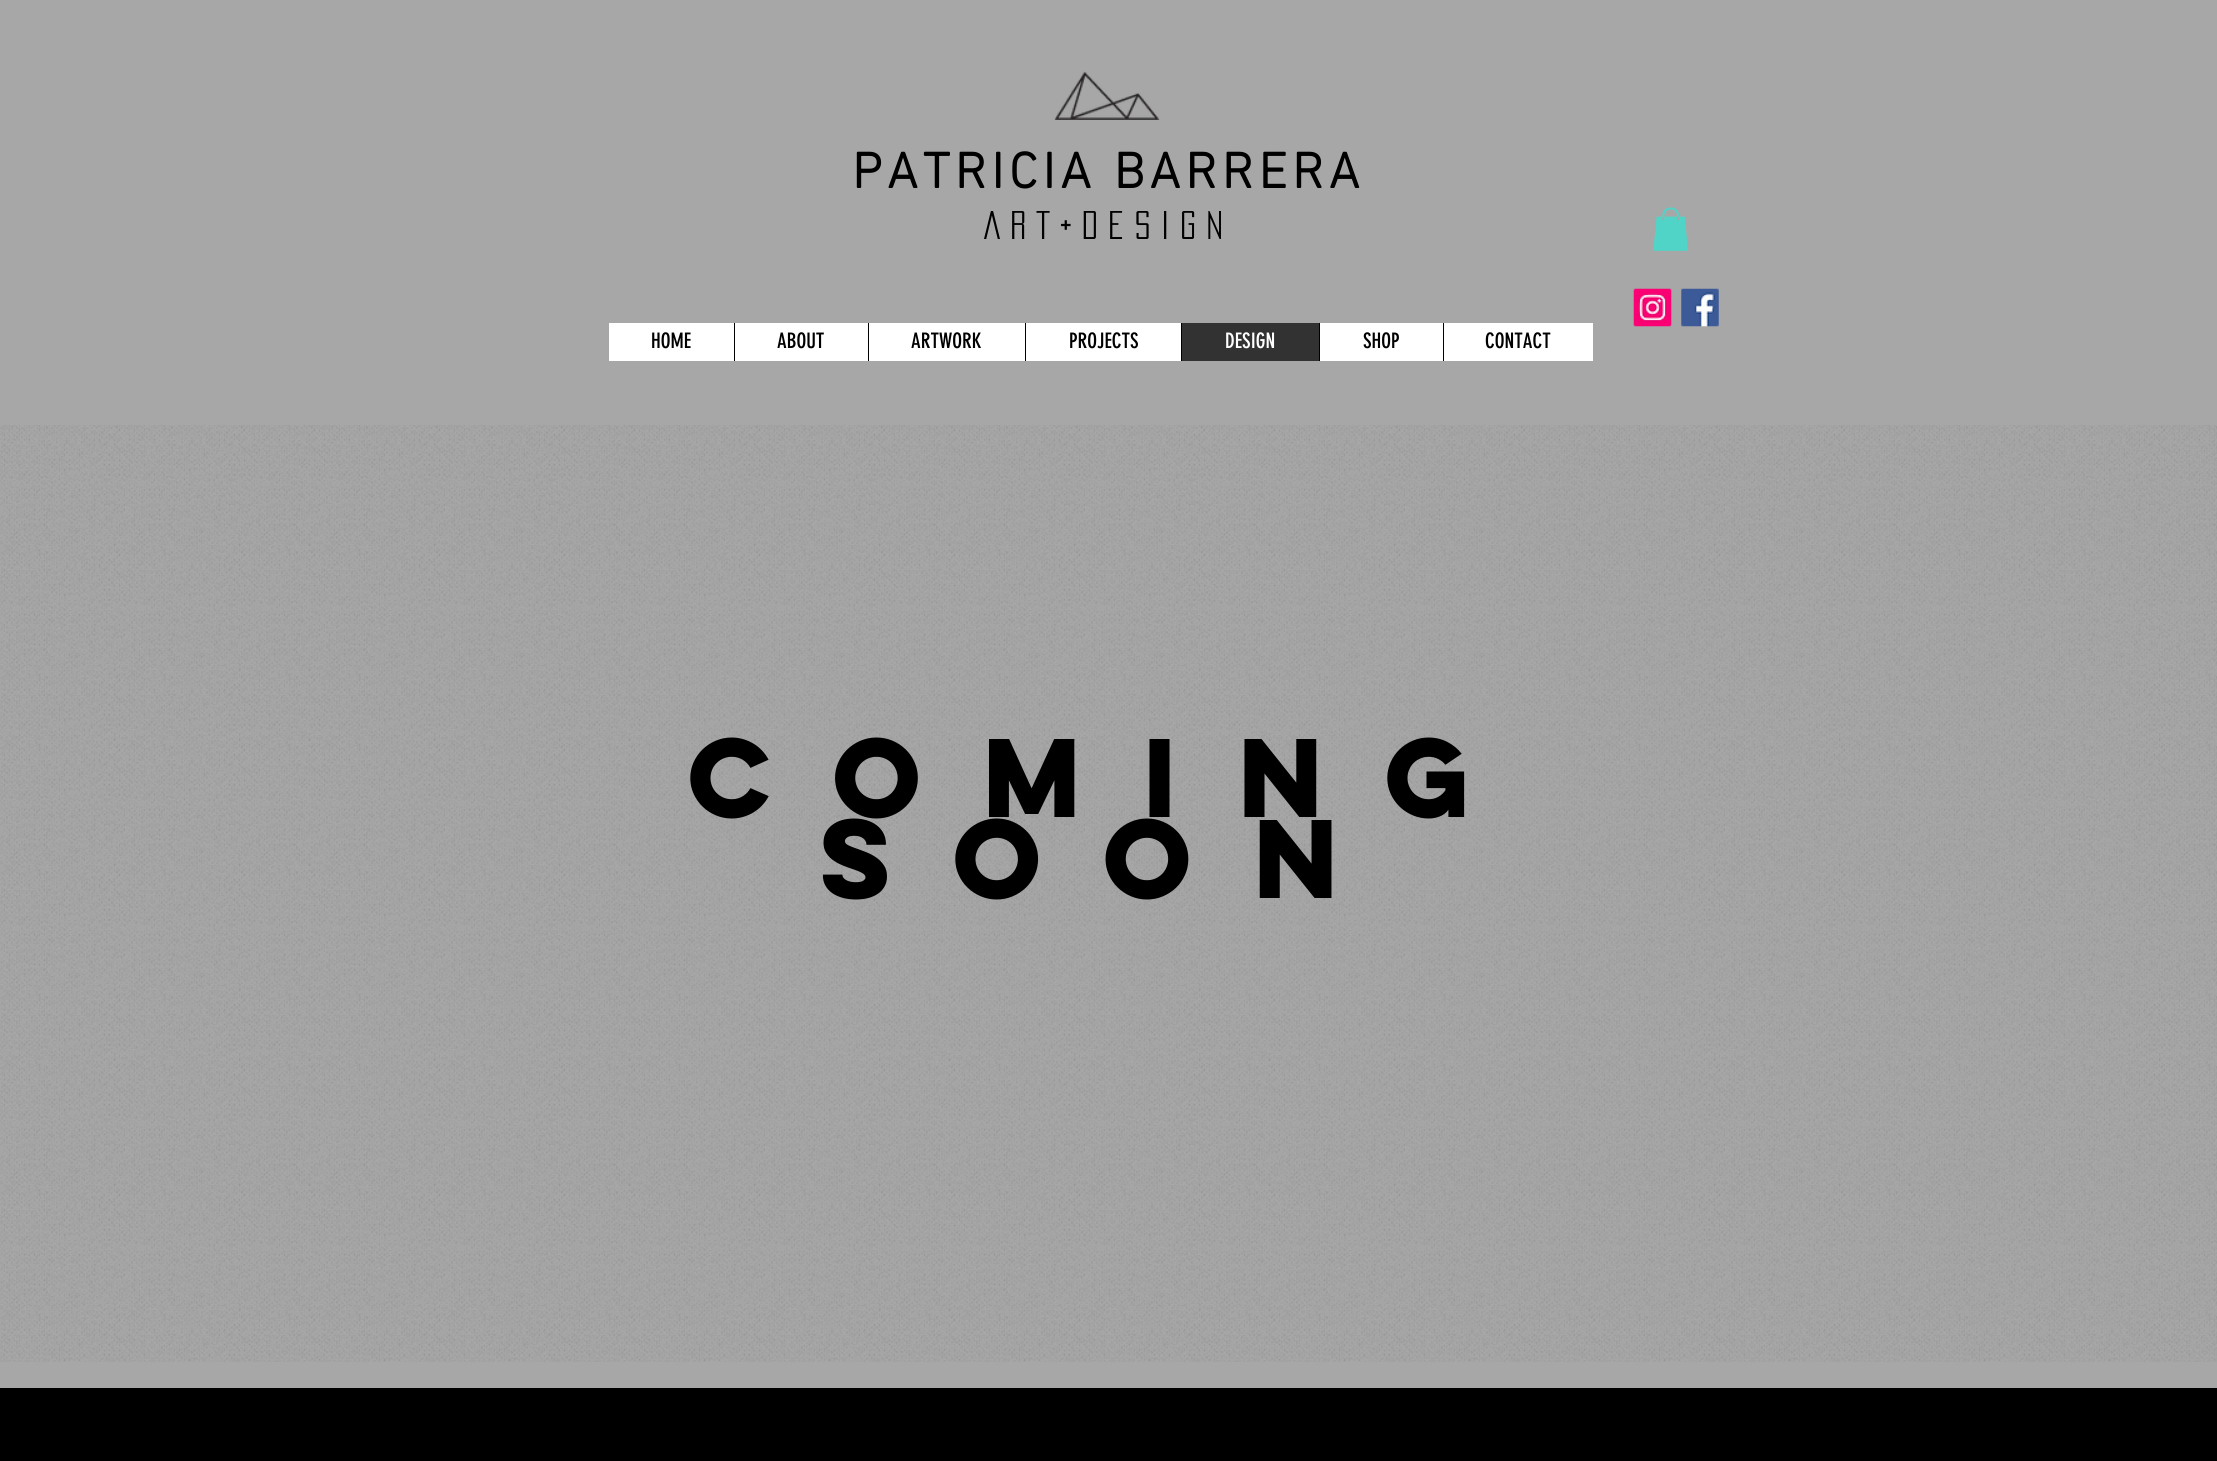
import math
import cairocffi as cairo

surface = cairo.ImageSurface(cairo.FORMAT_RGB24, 2217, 1461)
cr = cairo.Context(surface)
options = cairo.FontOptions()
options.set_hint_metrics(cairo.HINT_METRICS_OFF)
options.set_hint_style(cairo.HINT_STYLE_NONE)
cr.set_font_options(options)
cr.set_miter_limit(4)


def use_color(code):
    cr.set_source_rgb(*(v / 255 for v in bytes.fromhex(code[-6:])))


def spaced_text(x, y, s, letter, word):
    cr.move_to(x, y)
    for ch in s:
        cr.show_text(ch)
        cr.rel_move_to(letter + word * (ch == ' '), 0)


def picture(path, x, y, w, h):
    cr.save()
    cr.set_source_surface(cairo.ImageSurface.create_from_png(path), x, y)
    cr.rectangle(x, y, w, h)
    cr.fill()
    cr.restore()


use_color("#a7a7a7")
cr.paint()
picture("img1.png", 1054, 71, 106, 49)
cr.select_font_face("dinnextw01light", cairo.FONT_SLANT_NORMAL, cairo.FONT_WEIGHT_BOLD)
cr.set_font_size(51.25)
use_color("#000000")
spaced_text(852, 188, "PATRICIA BARRERA", 5.1, 0)
cr.select_font_face("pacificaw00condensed")
cr.set_font_size(35)
spaced_text(984, 239, "ART+design", 10.5, 0)
picture("img2.png", 1653, 207, 35, 44)
picture("img3.png", 1633, 288, 39, 39)
picture("img4.png", 1681, 288, 38, 39)
use_color("#ffffff")
cr.rectangle(609, 323, 984, 38)
cr.fill()
cr.select_font_face("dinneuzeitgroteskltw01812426")
cr.set_font_size(21)
use_color("#000000")
cr.move_to(651, 348)
cr.show_text("HOME")
cr.rectangle(734, 323, 1, 38)
cr.fill()
cr.move_to(777, 348)
cr.show_text("ABOUT")
cr.rectangle(868, 323, 1, 38)
cr.fill()
cr.move_to(911, 348)
cr.show_text("ARTWORK")
cr.rectangle(1025, 323, 1, 38)
cr.fill()
cr.move_to(1069, 348)
cr.show_text("PROJECTS")
use_color("#323232")
cr.rectangle(1182, 323, 137, 38)
cr.fill()
use_color("#000000")
cr.rectangle(1181, 323, 1, 38)
cr.fill()
use_color("#ffffff")
cr.move_to(1225, 348)
cr.show_text("DESIGN")
use_color("#000000")
cr.rectangle(1319, 323, 1, 38)
cr.fill()
cr.move_to(1363, 348)
cr.show_text("SHOP")
cr.rectangle(1443, 323, 1, 38)
cr.fill()
cr.move_to(1485, 348)
cr.show_text("CONTACT")
picture("img5.png", 0, 425, 2217, 937)
cr.select_font_face("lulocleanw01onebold", cairo.FONT_SLANT_NORMAL, cairo.FONT_WEIGHT_BOLD)
cr.set_font_size(100)
spaced_text(688, 817, "coming", 40, 0)
spaced_text(820, 898, "soon", 40, 0)
cr.rectangle(0, 1388, 2217, 73)
cr.fill()
surface.write_to_png("result.png")
